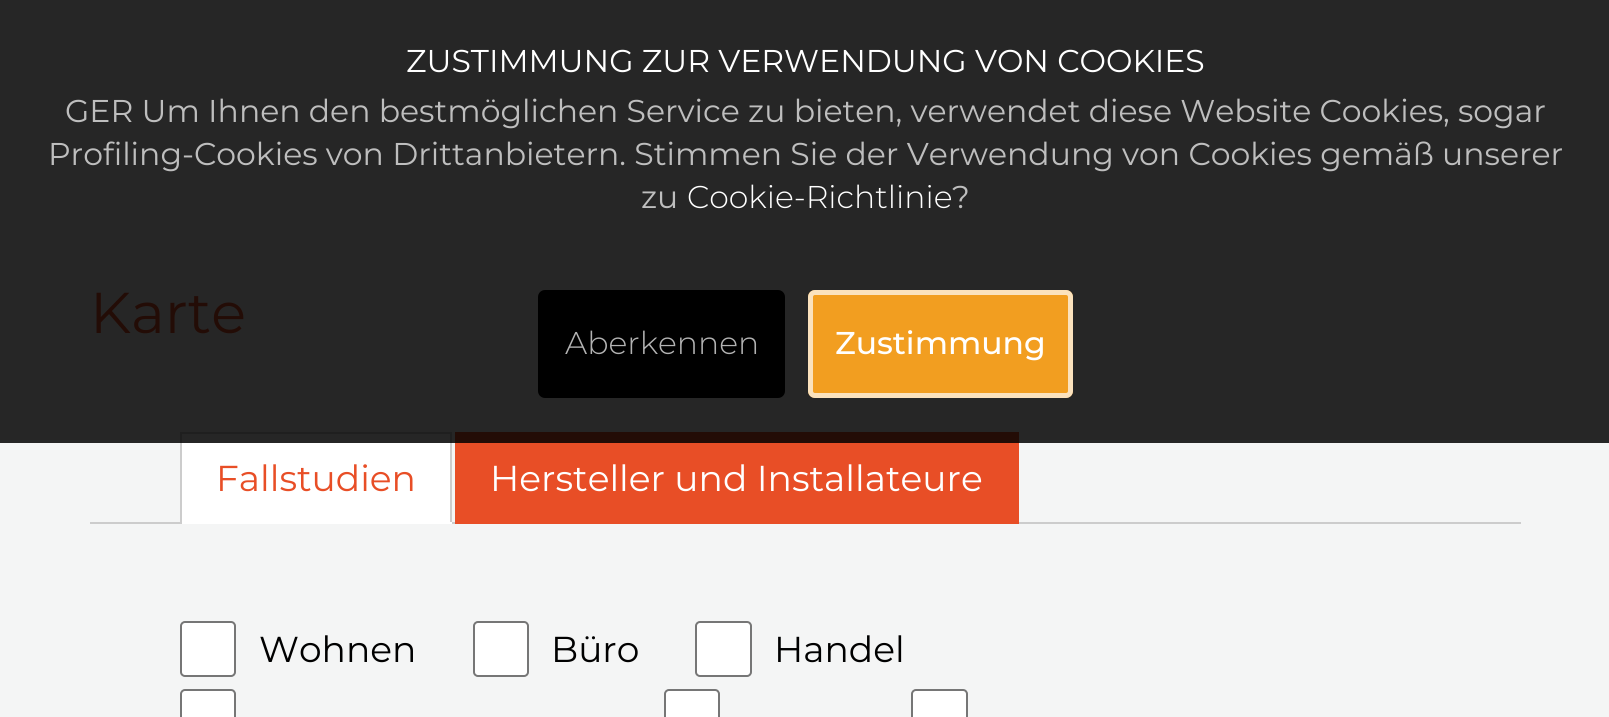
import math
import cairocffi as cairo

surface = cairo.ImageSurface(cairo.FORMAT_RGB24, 1609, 717)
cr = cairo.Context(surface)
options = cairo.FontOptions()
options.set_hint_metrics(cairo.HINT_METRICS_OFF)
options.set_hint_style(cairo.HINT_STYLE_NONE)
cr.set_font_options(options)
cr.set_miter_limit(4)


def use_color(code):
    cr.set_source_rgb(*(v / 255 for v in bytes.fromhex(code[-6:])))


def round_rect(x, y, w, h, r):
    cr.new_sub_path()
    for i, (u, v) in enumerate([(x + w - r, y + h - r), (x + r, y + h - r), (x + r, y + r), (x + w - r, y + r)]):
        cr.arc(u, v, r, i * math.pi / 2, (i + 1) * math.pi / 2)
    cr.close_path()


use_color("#262626")
cr.paint()
cr.select_font_face("Montserrat")
cr.set_font_size(31.5)
use_color("#ffffff")
cr.move_to(406, 72)
cr.show_text("ZUSTIMMUNG ZUR VERWENDUNG VON COOKIES")
use_color("#bebebe")
cr.move_to(65, 122)
cr.show_text("GER Um Ihnen den bestmöglichen Service zu bieten, verwendet diese Website Cookies, sogar")
cr.move_to(48, 165)
cr.show_text("Profiling-Cookies von Drittanbietern. Stimmen Sie der Verwendung von Cookies gemäß unserer")
cr.move_to(641, 208)
cr.show_text("zu")
cr.select_font_face("Montserrat Light")
use_color("#ffffff")
cr.move_to(687, 208)
cr.show_text("Cookie-Richtlinie")
cr.select_font_face("Montserrat")
use_color("#bebebe")
cr.move_to(952, 208)
cr.show_text("?")
use_color("#000000")
round_rect(540.5, 292.5, 242, 103, 4.5)
cr.fill_preserve()
cr.set_line_width(5)
cr.stroke()
cr.select_font_face("Montserrat Light")
use_color("#b3b3b3")
cr.move_to(565, 354)
cr.show_text("Aberkennen")
use_color("#f29e20")
round_rect(808, 290, 265, 108, 7)
cr.fill()
round_rect(810.5, 292.5, 260, 103, 4.5)
cr.set_source_rgba(1, 1, 1, 0.7)
cr.stroke()
cr.select_font_face("Montserrat Medium")
use_color("#ffffff")
cr.move_to(835, 354)
cr.show_text("Zustimmung")
use_color("#f4f5f5")
cr.rectangle(0, 443, 1609, 274)
cr.fill()
cr.select_font_face("Montserrat")
cr.set_font_size(57.5)
use_color("#230c06")
cr.move_to(90, 333)
cr.show_text("Karte")
use_color("#cccccc")
cr.rectangle(90, 522, 1431, 2)
cr.fill()
use_color("#ffffff")
cr.rectangle(182, 443, 268, 79)
cr.fill()
use_color("#1f1f1f")
cr.rectangle(180, 432, 272, 2)
cr.fill()
use_color("#cccccc")
cr.rectangle(450, 443, 2, 81)
cr.fill()
use_color("#1f1f1f")
cr.rectangle(450, 432, 2, 11)
cr.fill()
use_color("#ffffff")
cr.rectangle(180, 522, 272, 2)
cr.fill()
use_color("#cccccc")
cr.rectangle(180, 443, 2, 81)
cr.fill()
use_color("#1f1f1f")
cr.rectangle(180, 432, 2, 11)
cr.fill()
cr.set_font_size(36)
use_color("#e84e26")
cr.move_to(216, 491)
cr.show_text("Fallstudien")
cr.rectangle(455, 443, 564, 81)
cr.fill()
use_color("#230c06")
cr.rectangle(455, 432, 564, 11)
cr.fill()
use_color("#ffffff")
cr.move_to(490, 491)
cr.show_text("Hersteller und Installateure")
round_rect(181, 622, 54, 54, 4)
cr.fill_preserve()
use_color("#767676")
cr.set_line_width(2)
cr.stroke()
use_color("#000000")
cr.move_to(259, 662)
cr.show_text("Wohnen")
use_color("#ffffff")
round_rect(474, 622, 54, 54, 4)
cr.fill_preserve()
use_color("#767676")
cr.stroke()
use_color("#000000")
cr.move_to(551, 662)
cr.show_text("Büro")
use_color("#ffffff")
round_rect(696, 622, 55, 54, 4)
cr.fill_preserve()
use_color("#767676")
cr.stroke()
use_color("#000000")
cr.move_to(774, 662)
cr.show_text("Handel")
use_color("#ffffff")
round_rect(181, 690, 54, 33, 4)
cr.fill_preserve()
use_color("#767676")
cr.stroke()
use_color("#ffffff")
round_rect(665, 690, 54, 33, 4)
cr.fill_preserve()
use_color("#767676")
cr.stroke()
use_color("#ffffff")
round_rect(912, 690, 55, 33, 4)
cr.fill_preserve()
use_color("#767676")
cr.stroke()
surface.write_to_png("result.png")
